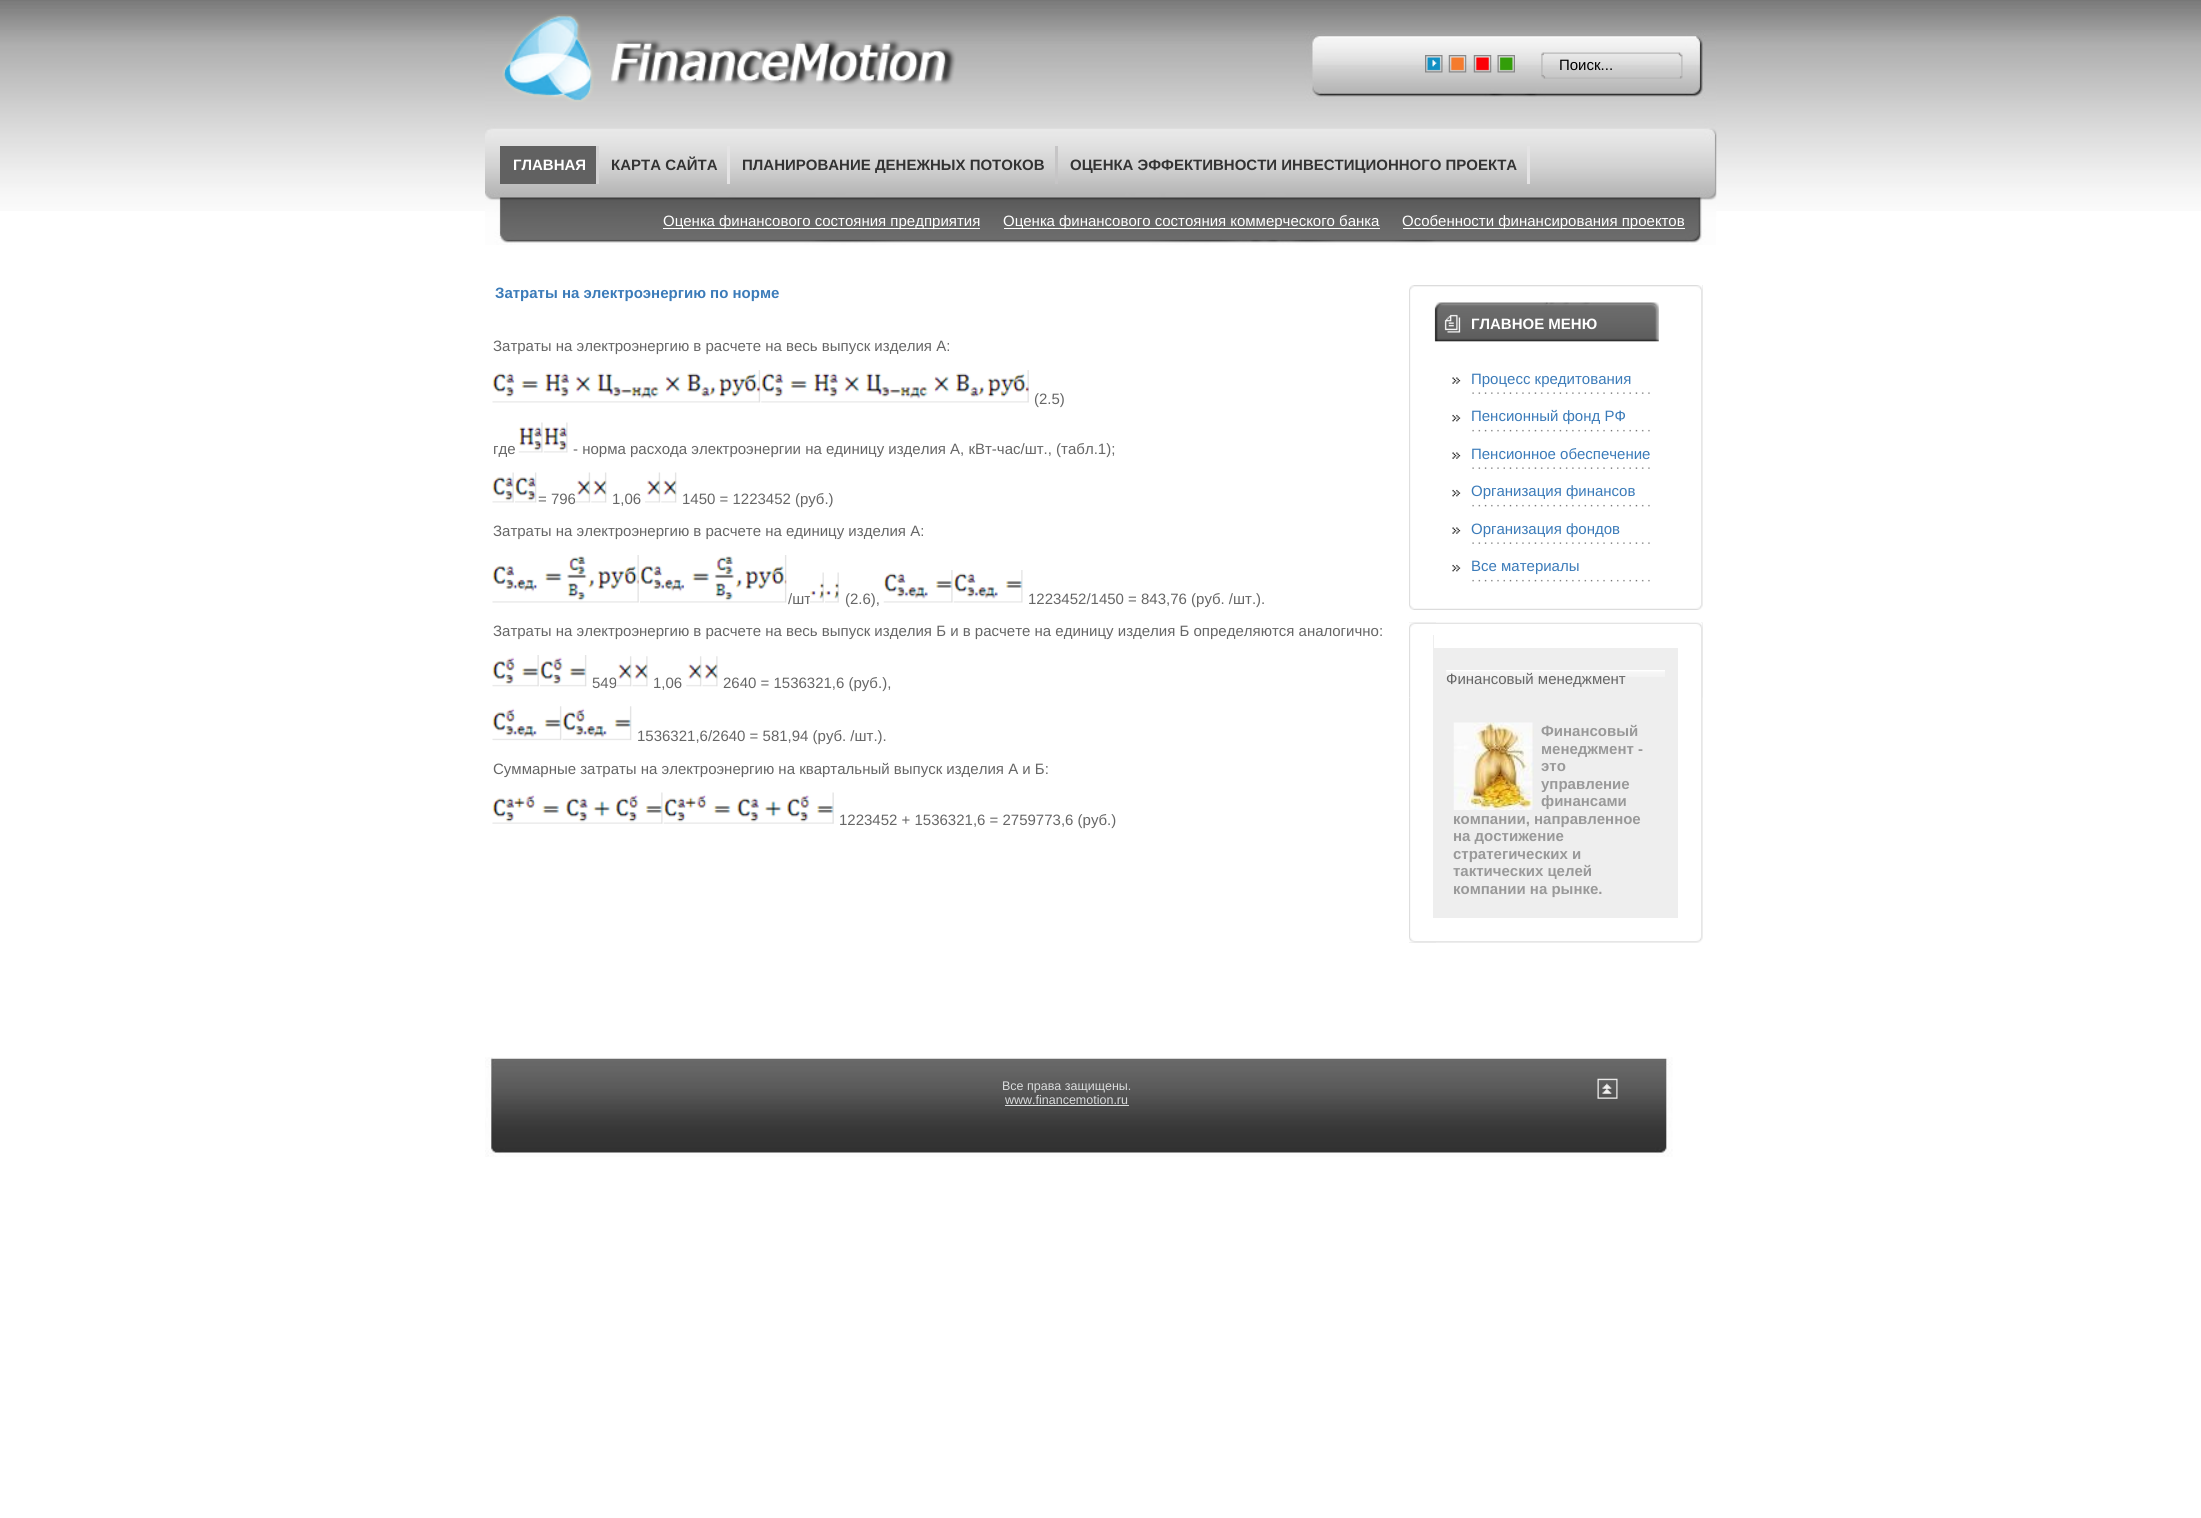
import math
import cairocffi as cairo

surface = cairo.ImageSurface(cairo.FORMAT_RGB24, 2201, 1518)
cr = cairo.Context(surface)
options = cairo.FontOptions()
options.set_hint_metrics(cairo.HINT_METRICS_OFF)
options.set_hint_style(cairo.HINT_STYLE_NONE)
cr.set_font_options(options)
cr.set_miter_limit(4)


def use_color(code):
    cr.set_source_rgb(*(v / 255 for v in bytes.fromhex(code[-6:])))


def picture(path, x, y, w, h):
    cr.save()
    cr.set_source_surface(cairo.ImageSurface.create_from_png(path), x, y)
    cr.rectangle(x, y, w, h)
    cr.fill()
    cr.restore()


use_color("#ffffff")
cr.paint()
picture("img1.png", 0, 0, 2201, 211)
picture("img2.png", 485, 30, 1232, 215)
picture("img3.png", 502, 14, 454, 88)
picture("img4.png", 1425, 55, 18, 18)
picture("img5.png", 1448, 55, 19, 18)
picture("img6.png", 1473, 55, 19, 18)
picture("img7.png", 1497, 55, 18, 18)
picture("img8.png", 1541, 52, 142, 27)
cr.select_font_face("Liberation Sans")
cr.set_font_size(15)
use_color("#000000")
cr.move_to(1559, 70)
cr.show_text("Поиск...")
use_color("#616161")
cr.rectangle(500, 146, 96, 38)
cr.fill()
use_color("#d3d2d3")
cr.rectangle(596, 146, 3, 38)
cr.fill()
cr.select_font_face("Liberation Sans", cairo.FONT_SLANT_NORMAL, cairo.FONT_WEIGHT_BOLD)
use_color("#ffffff")
cr.move_to(513, 170)
cr.show_text("ГЛАВНАЯ")
use_color("#e4e3e4")
cr.rectangle(727, 146, 3, 38)
cr.fill()
use_color("#333333")
cr.move_to(611, 170)
cr.show_text("КАРТА САЙТА")
use_color("#c6c5c6")
cr.rectangle(1055, 146, 3, 38)
cr.fill()
use_color("#333333")
cr.move_to(742, 170)
cr.show_text("ПЛАНИРОВАНИЕ ДЕНЕЖНЫХ ПОТОКОВ")
use_color("#e4e3e4")
cr.rectangle(1527, 146, 3, 38)
cr.fill()
use_color("#333333")
cr.move_to(1070, 170)
cr.show_text("ОЦЕНКА ЭФФЕКТИВНОСТИ ИНВЕСТИЦИОННОГО ПРОЕКТА")
use_color("#ffffff")
cr.rectangle(663, 228, 317, 1)
cr.fill()
cr.select_font_face("Liberation Sans")
cr.move_to(663, 226)
cr.show_text("Оценка финансового состояния предприятия")
cr.rectangle(1004, 228, 376, 1)
cr.fill()
cr.move_to(1003, 226)
cr.show_text("Оценка финансового состояния коммерческого банка")
cr.rectangle(1403, 228, 282, 1)
cr.fill()
cr.move_to(1402, 226)
cr.show_text("Особенности финансирования проектов")
cr.select_font_face("Liberation Sans", cairo.FONT_SLANT_NORMAL, cairo.FONT_WEIGHT_BOLD)
use_color("#3b7bb9")
cr.move_to(495, 298)
cr.show_text("Затраты на электроэнергию по норме")
cr.select_font_face("Liberation Sans")
use_color("#666666")
cr.move_to(493, 351)
cr.show_text("Затраты на электроэнергию в расчете на весь выпуск изделия А:")
picture("img9.png", 492, 370, 269, 33)
picture("img10.png", 761, 370, 268, 33)
cr.move_to(1034, 404)
cr.show_text("(2.5)")
cr.move_to(493, 454)
cr.show_text("где")
picture("img11.png", 518, 422, 25, 31)
picture("img12.png", 543, 422, 25, 31)
cr.move_to(573, 454)
cr.show_text("- норма расхода электроэнергии на единицу изделия А, кВт-час/шт., (табл.1);")
picture("img13.png", 492, 472, 22, 31)
picture("img14.png", 515, 472, 22, 31)
cr.move_to(538, 504)
cr.show_text("= 796")
picture("img15.png", 575, 472, 16, 31)
picture("img16.png", 591, 472, 16, 31)
cr.move_to(612, 504)
cr.show_text("1,06")
picture("img17.png", 645, 472, 16, 31)
picture("img16.png", 661, 472, 16, 31)
cr.move_to(682, 504)
cr.show_text("1450 = 1223452 (руб.)")
cr.move_to(493, 536)
cr.show_text("Затраты на электроэнергию в расчете на единицу изделия А:")
picture("img18.png", 492, 555, 147, 48)
picture("img19.png", 640, 555, 147, 48)
cr.move_to(788, 604)
cr.show_text("/шт")
picture("img20.png", 810, 572, 14, 31)
picture("img20.png", 825, 572, 14, 31)
cr.move_to(845, 604)
cr.show_text("(2.6),")
picture("img21.png", 883, 570, 70, 33)
picture("img22.png", 953, 570, 70, 33)
cr.move_to(1028, 604)
cr.show_text("1223452/1450 = 843,76 (руб. /шт.).")
cr.move_to(493, 636)
cr.show_text("Затраты на электроэнергию в расчете на весь выпуск изделия Б и в расчете на единицу изделия Б определяются аналогично:")
picture("img23.png", 492, 655, 47, 32)
picture("img24.png", 540, 655, 47, 32)
cr.move_to(592, 688)
cr.show_text("549")
picture("img25.png", 616, 656, 16, 31)
picture("img26.png", 632, 656, 16, 31)
cr.move_to(653, 688)
cr.show_text("1,06")
picture("img25.png", 686, 656, 16, 31)
picture("img26.png", 702, 656, 16, 31)
cr.move_to(723, 688)
cr.show_text("2640 = 1536321,6 (руб.),")
picture("img27.png", 492, 706, 70, 35)
picture("img28.png", 562, 706, 70, 35)
cr.move_to(637, 741)
cr.show_text("1536321,6/2640 = 581,94 (руб. /шт.).")
cr.move_to(493, 774)
cr.show_text("Суммарные затраты на электроэнергию на квартальный выпуск изделия А и Б:")
picture("img29.png", 492, 792, 171, 32)
picture("img30.png", 663, 792, 171, 32)
cr.move_to(839, 825)
cr.show_text("1223452 + 1536321,6 = 2759773,6 (руб.)")
picture("img31.png", 1414, 285, 289, 325)
picture("img32.png", 1409, 360, 5, 250)
picture("img33.png", 1414, 285, 289, 75)
picture("img34.png", 1409, 285, 5, 75)
picture("img35.png", 1434, 302, 225, 40)
cr.select_font_face("Liberation Sans", cairo.FONT_SLANT_NORMAL, cairo.FONT_WEIGHT_BOLD)
use_color("#ffffff")
cr.move_to(1471, 329)
cr.show_text("ГЛАВНОЕ МЕНЮ")
picture("img36.png", 1452, 377, 198, 17)
cr.select_font_face("Liberation Sans")
use_color("#3b7bb9")
cr.move_to(1471, 384)
cr.show_text("Процесс кредитования")
picture("img37.png", 1452, 414, 198, 18)
cr.move_to(1471, 421)
cr.show_text("Пенсионный фонд РФ")
picture("img36.png", 1452, 452, 198, 17)
cr.move_to(1471, 459)
cr.show_text("Пенсионное обеспечение")
picture("img37.png", 1452, 489, 198, 18)
cr.move_to(1471, 496)
cr.show_text("Организация финансов")
picture("img36.png", 1452, 527, 198, 17)
cr.move_to(1471, 534)
cr.show_text("Организация фондов")
picture("img37.png", 1452, 564, 198, 18)
cr.move_to(1471, 571)
cr.show_text("Все материалы")
picture("img38.png", 1409, 622, 294, 321)
picture("img39.png", 1409, 622, 27, 321)
picture("img40.png", 1409, 622, 294, 76)
picture("img41.png", 1409, 622, 27, 76)
use_color("#eeeeee")
cr.rectangle(1433, 635, 245, 283)
cr.fill()
use_color("#ffffff")
cr.rectangle(1434, 635, 244, 13)
cr.fill()
picture("img42.png", 1446, 670, 219, 7)
use_color("#666666")
cr.move_to(1446, 684)
cr.show_text("Финансовый менеджмент")
picture("img43.png", 1453, 722, 81, 88)
cr.select_font_face("Liberation Sans", cairo.FONT_SLANT_NORMAL, cairo.FONT_WEIGHT_BOLD)
use_color("#999999")
cr.move_to(1541, 736)
cr.show_text("Финансовый")
cr.move_to(1541, 754)
cr.show_text("менеджмент -")
cr.move_to(1541, 771)
cr.show_text("это")
cr.move_to(1541, 789)
cr.show_text("управление")
cr.move_to(1541, 806)
cr.show_text("финансами")
cr.move_to(1453, 824)
cr.show_text("компании, направленное")
cr.move_to(1453, 841)
cr.show_text("на достижение")
cr.move_to(1453, 859)
cr.show_text("стратегических и")
cr.move_to(1453, 876)
cr.show_text("тактических целей")
cr.move_to(1453, 894)
cr.show_text("компании на рынке.")
picture("img44.png", 485, 1057, 1188, 100)
cr.select_font_face("Liberation Sans")
cr.set_font_size(12.5)
use_color("#dadcdd")
cr.move_to(1002, 1090)
cr.show_text("Все права защищены.")
picture("img45.png", 1597, 1078, 21, 21)
cr.move_to(1005, 1104)
cr.show_text("www.financemotion.ru")
cr.rectangle(1005, 1105, 124, 1)
cr.fill()
surface.write_to_png("result.png")
